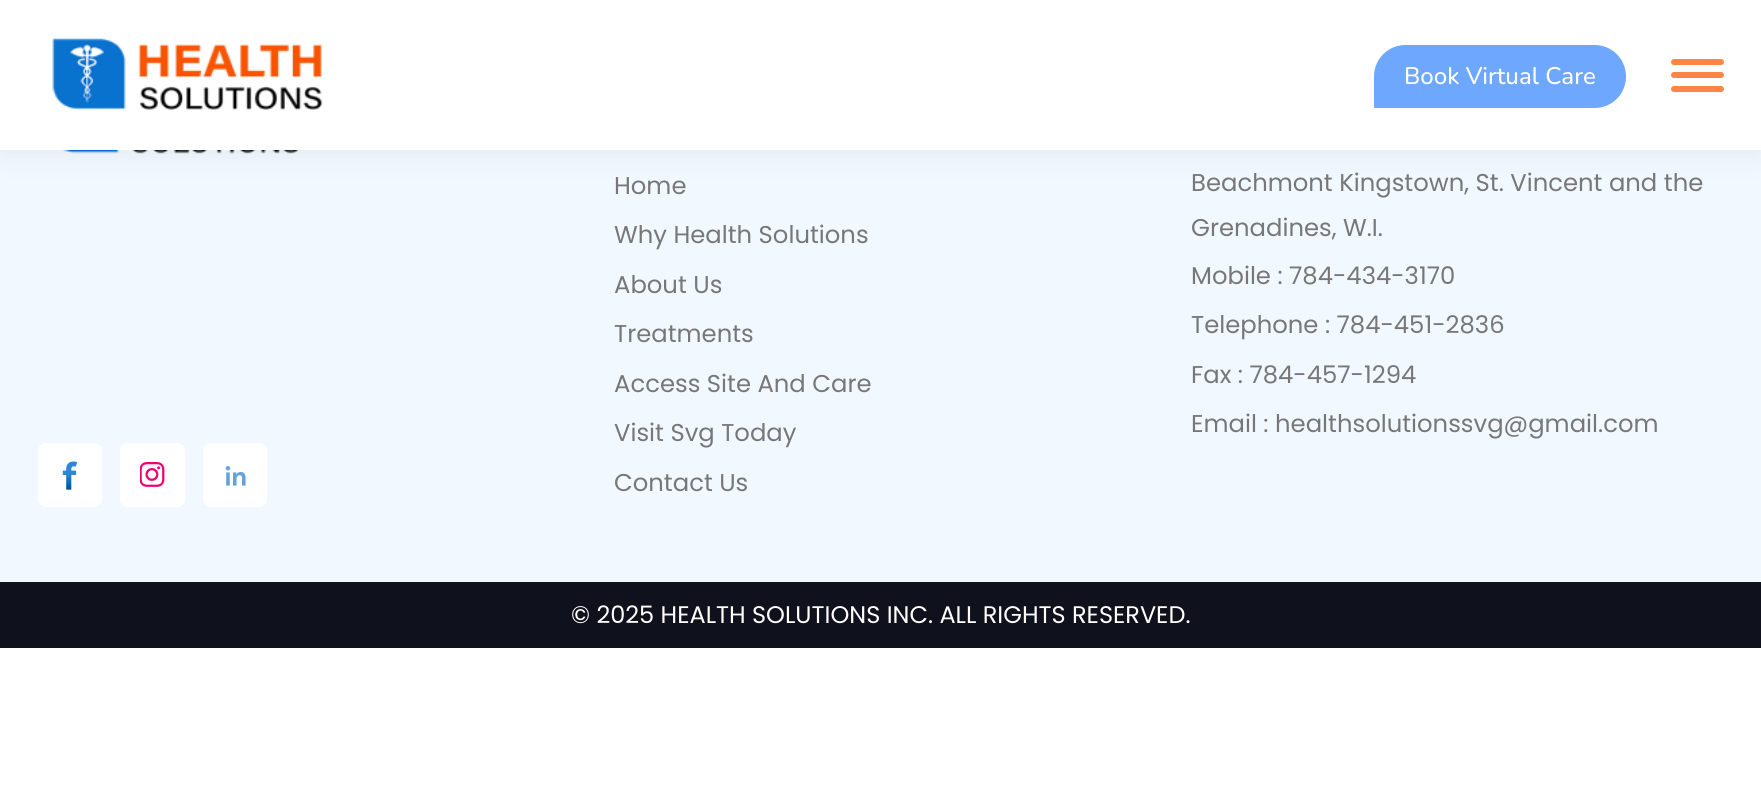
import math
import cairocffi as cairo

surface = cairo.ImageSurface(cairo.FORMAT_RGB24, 1761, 799)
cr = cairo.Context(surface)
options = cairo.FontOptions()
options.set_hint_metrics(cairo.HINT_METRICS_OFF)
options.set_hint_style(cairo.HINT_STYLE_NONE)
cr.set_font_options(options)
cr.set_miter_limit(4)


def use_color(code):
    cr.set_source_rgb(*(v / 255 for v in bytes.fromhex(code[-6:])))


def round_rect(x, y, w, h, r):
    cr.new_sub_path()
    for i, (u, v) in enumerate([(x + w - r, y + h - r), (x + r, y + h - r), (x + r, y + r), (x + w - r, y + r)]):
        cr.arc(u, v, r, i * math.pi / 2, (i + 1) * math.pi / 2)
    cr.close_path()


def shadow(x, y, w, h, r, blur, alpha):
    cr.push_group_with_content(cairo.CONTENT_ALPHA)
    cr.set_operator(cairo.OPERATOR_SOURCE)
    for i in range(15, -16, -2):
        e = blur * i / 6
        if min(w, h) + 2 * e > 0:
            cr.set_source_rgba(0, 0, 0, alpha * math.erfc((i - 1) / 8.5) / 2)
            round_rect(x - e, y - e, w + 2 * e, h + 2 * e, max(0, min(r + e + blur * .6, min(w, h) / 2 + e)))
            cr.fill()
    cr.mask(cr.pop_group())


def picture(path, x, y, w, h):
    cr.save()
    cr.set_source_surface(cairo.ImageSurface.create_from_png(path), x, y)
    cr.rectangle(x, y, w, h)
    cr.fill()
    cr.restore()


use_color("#ffffff")
cr.paint()
use_color("#f1f8ff")
cr.rectangle(0, 150, 1761, 432)
cr.fill()
picture("img2.png", 62, 150, 237, 4)
use_color("#000000")
shadow(0, 6, 1761, 150, 0, 15, 0.05)
use_color("#ffffff")
cr.rectangle(0, 0, 1761, 150)
cr.fill()
picture("img1.png", 52, 38, 271, 72)
use_color("#6da7fe")
cr.new_path()
cr.move_to(1405.5, 45)
cr.line_to(1594.5, 45)
cr.curve_to(1612, 45, 1626, 59, 1626, 76.5)
cr.curve_to(1626, 94, 1612, 108, 1594.5, 108)
cr.line_to(1374, 108)
cr.line_to(1374, 76.5)
cr.curve_to(1374, 59, 1388, 45, 1405.5, 45)
cr.close_path()
cr.fill()
cr.select_font_face("Nunito Medium")
cr.set_font_size(24)
use_color("#ffffff")
cr.move_to(1404, 84)
cr.show_text("Book Virtual Care")
use_color("#ff8545")
round_rect(1671, 59, 53, 6, 3)
cr.fill()
round_rect(1671, 72, 53, 6, 3)
cr.fill()
round_rect(1671, 86, 53, 6, 3)
cr.fill()
use_color("#ffffff")
round_rect(38, 443, 64, 64, 8)
cr.fill()
picture("img3.png", 62, 461, 16, 29)
round_rect(120, 443, 65, 64, 8)
cr.fill()
picture("img4.png", 140, 462, 25, 25)
round_rect(203, 443, 64, 64, 8)
cr.fill()
picture("img5.png", 225, 466, 21, 20)
cr.select_font_face("Poppins")
cr.set_font_size(24.3)
use_color("#777777")
cr.move_to(614, 194)
cr.show_text("Home")
cr.move_to(614, 243)
cr.show_text("Why Health Solutions")
cr.move_to(614, 293)
cr.show_text("About Us")
cr.move_to(614, 342)
cr.show_text("Treatments")
cr.move_to(614, 392)
cr.show_text("Access Site And Care")
cr.move_to(614, 441)
cr.show_text("Visit Svg Today")
cr.move_to(614, 491)
cr.show_text("Contact Us")
cr.move_to(1191, 191)
cr.show_text("Beachmont Kingstown, St. Vincent and the")
cr.move_to(1191, 236)
cr.show_text("Grenadines, W.I.")
cr.move_to(1191, 284)
cr.show_text("Mobile : 784-434-3170")
cr.move_to(1191, 333)
cr.show_text("Telephone : 784-451-2836")
cr.move_to(1191, 383)
cr.show_text("Fax : 784-457-1294")
cr.move_to(1191, 432)
cr.show_text("Email : healthsolutionssvg@gmail.com")
use_color("#0f121d")
cr.rectangle(0, 582, 1761, 66)
cr.fill()
cr.set_font_size(24)
use_color("#ffffff")
cr.move_to(571, 623)
cr.show_text("© 2025 HEALTH SOLUTIONS INC. ALL RIGHTS RESERVED.")
surface.write_to_png("result.png")
